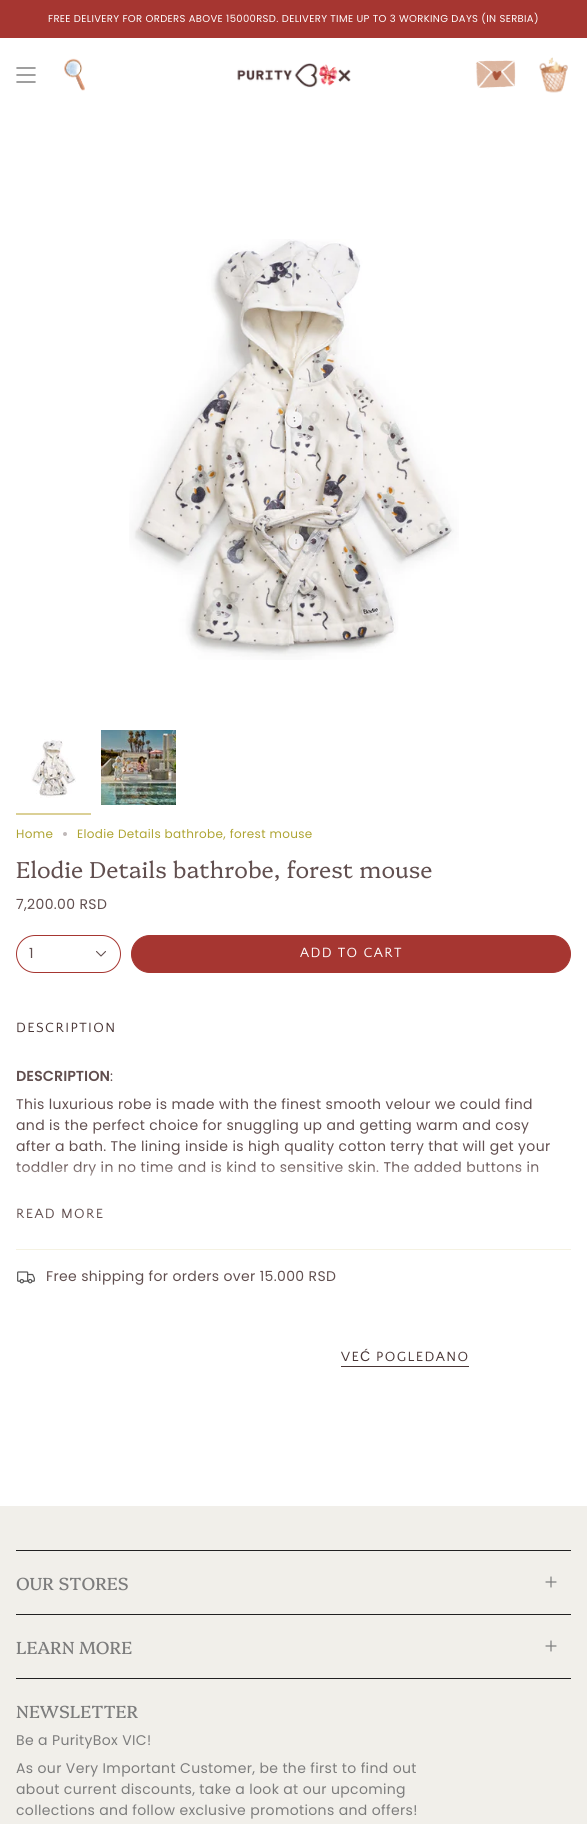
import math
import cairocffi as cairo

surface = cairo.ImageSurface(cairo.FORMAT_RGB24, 587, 1824)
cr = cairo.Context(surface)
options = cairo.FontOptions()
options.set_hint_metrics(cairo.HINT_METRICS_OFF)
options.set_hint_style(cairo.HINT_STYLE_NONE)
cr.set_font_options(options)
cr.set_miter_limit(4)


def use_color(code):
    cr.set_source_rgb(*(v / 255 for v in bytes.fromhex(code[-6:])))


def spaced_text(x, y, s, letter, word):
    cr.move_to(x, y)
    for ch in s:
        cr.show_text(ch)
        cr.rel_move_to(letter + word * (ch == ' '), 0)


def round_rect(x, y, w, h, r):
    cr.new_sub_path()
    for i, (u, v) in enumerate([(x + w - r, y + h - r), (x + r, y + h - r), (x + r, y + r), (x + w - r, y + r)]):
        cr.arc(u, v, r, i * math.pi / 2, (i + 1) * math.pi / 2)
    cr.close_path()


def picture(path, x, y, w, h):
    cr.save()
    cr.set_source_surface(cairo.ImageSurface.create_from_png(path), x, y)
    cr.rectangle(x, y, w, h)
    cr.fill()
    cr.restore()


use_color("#ffffff")
cr.paint()
use_color("#a63631")
cr.rectangle(0, 0, 587, 38)
cr.fill()
cr.select_font_face("Poppins")
cr.set_font_size(10)
use_color("#ffffff")
spaced_text(48, 22, "FREE DELIVERY FOR ORDERS ABOVE 15000RSD. DELIVERY TIME UP TO 3 WORKING DAYS (IN SERBIA)", 0.35, 0)
cr.new_path()
cr.move_to(17, 68)
cr.line_to(35, 68)
cr.move_to(17, 75)
cr.line_to(35, 75)
cr.move_to(17, 82)
cr.line_to(35, 82)
use_color("#7c7c7c")
cr.set_line_width(1.5)
cr.set_line_cap(cairo.LINE_CAP_ROUND)
cr.set_line_join(cairo.LINE_JOIN_ROUND)
cr.stroke()
picture("img1.png", 64, 58, 21, 33)
picture("img2.png", 237, 63, 114, 25)
picture("img3.png", 475, 60, 41, 29)
picture("img4.png", 539, 57, 29, 36)
picture("img5.png", 129, 239, 330, 421)
picture("img6.png", 31, 739, 45, 59)
use_color("#dbd096")
cr.rectangle(16, 813, 75, 2)
cr.fill()
picture("img7.png", 101, 730, 75, 75)
cr.set_font_size(12)
use_color("#aea432")
spaced_text(16, 838, "Home", 0.35, 0)
use_color("#c0b9b9")
cr.new_path()
cr.arc(65, 834, 2, 0, 2 * math.pi)
cr.fill()
use_color("#aea432")
spaced_text(77, 838, "Elodie Details bathrobe, forest mouse", 0.35, 0)
cr.select_font_face("Platypi Light")
cr.set_font_size(23)
use_color("#614f4f")
cr.move_to(16, 878)
cr.show_text("Elodie Details bathrobe, forest mouse")
cr.select_font_face("Poppins")
cr.set_font_size(14)
spaced_text(16, 909, "7,200.00 RSD", 0.35, 0)
round_rect(16.5, 935.5, 104, 37, 18.5)
use_color("#a63631")
cr.set_line_width(1)
cr.set_line_cap(cairo.LINE_CAP_BUTT)
cr.set_line_join(cairo.LINE_JOIN_MITER)
cr.stroke()
use_color("#614f4f")
cr.move_to(29, 958)
cr.show_text("1")
cr.new_path()
cr.move_to(96.5, 951.5)
cr.line_to(101, 956)
cr.line_to(105.5, 951.5)
cr.set_line_width(1.1)
cr.set_line_cap(cairo.LINE_CAP_ROUND)
cr.set_line_join(cairo.LINE_JOIN_ROUND)
cr.stroke()
use_color("#a63631")
round_rect(131.5, 935.5, 439, 37, 18.5)
cr.fill_preserve()
cr.set_line_width(1)
cr.set_line_cap(cairo.LINE_CAP_BUTT)
cr.set_line_join(cairo.LINE_JOIN_MITER)
cr.stroke()
cr.select_font_face("Quattrocento Sans")
use_color("#ffffff")
spaced_text(300, 957, "ADD TO CART", 1.4, 0)
use_color("#483535")
spaced_text(16, 1032, "DESCRIPTION", 1.4, 0)
cr.select_font_face("Poppins", cairo.FONT_SLANT_NORMAL, cairo.FONT_WEIGHT_BOLD)
use_color("#614f4f")
spaced_text(16, 1081, "DESCRIPTION", 0.35, 0)
cr.select_font_face("Poppins")
spaced_text(110, 1081, ":", 0.35, 0)
spaced_text(16, 1109, "This luxurious robe is made with the finest smooth velour we could find", 0.35, 0)
spaced_text(16, 1130, "and is the perfect choice for snuggling up and getting warm and cosy", 0.35, 0)
spaced_text(16, 1151, "after a bath. The lining inside is high quality cotton terry that will get your", 0.35, 0)
spaced_text(16, 1172, "toddler dry in no time and is kind to sensitive skin. The added buttons in", 0.35, 0)
gradient = cairo.LinearGradient(286, 1163, 286, 1193)
gradient.add_color_stop_rgba(0, 1, 1, 1, 0)
gradient.add_color_stop_rgba(1, 1, 1, 1, 1)
cr.set_source(gradient)
cr.rectangle(16, 1164, 523, 12)
cr.fill()
cr.select_font_face("Quattrocento Sans")
use_color("#614f4f")
spaced_text(16, 1218, "READ MORE", 1.4, 0)
use_color("#f5f2e2")
cr.rectangle(16, 1249, 555, 1)
cr.fill()
picture("img8.png", 17, 1271, 18, 13)
cr.select_font_face("Poppins")
use_color("#614f4f")
spaced_text(46, 1281, "Free shipping for orders over 15.000 RSD", 0.35, 0)
cr.select_font_face("Quattrocento Sans")
use_color("#483535")
spaced_text(341, 1361, "VE", 1.4, 0)
cr.select_font_face("Liberation Sans")
spaced_text(360, 1361, "Ć", 1.4, 0)
cr.select_font_face("Quattrocento Sans")
spaced_text(376, 1361, "POGLEDANO", 1.4, 0)
cr.rectangle(341, 1366, 128, 1)
cr.fill()
use_color("#f1efea")
cr.rectangle(0, 1506, 587, 318)
cr.fill()
use_color("#212121")
cr.rectangle(16, 1550, 555, 1)
cr.fill()
cr.select_font_face("Platypi")
cr.set_font_size(17.5)
use_color("#7c7c7c")
cr.move_to(16, 1590)
cr.show_text("OUR STORES")
picture("img9.png", 545, 1576, 12, 12)
use_color("#212121")
cr.rectangle(16, 1614, 555, 1)
cr.fill()
cr.rectangle(16, 1678, 555, 1)
cr.fill()
use_color("#7c7c7c")
cr.move_to(16, 1654)
cr.show_text("LEARN MORE")
picture("img9.png", 545, 1640, 12, 12)
cr.move_to(16, 1718)
cr.show_text("NEWSLETTER")
cr.select_font_face("Poppins")
cr.set_font_size(14)
spaced_text(16, 1745, "Be a PurityBox VIC!", 0.35, 0)
spaced_text(16, 1773, "As our Very Important Customer, be the first to find out", 0.35, 0)
spaced_text(16, 1794, "about current discounts, take a look at our upcoming", 0.35, 0)
spaced_text(16, 1815, "collections and follow exclusive promotions and offers!", 0.35, 0)
surface.write_to_png("result.png")
